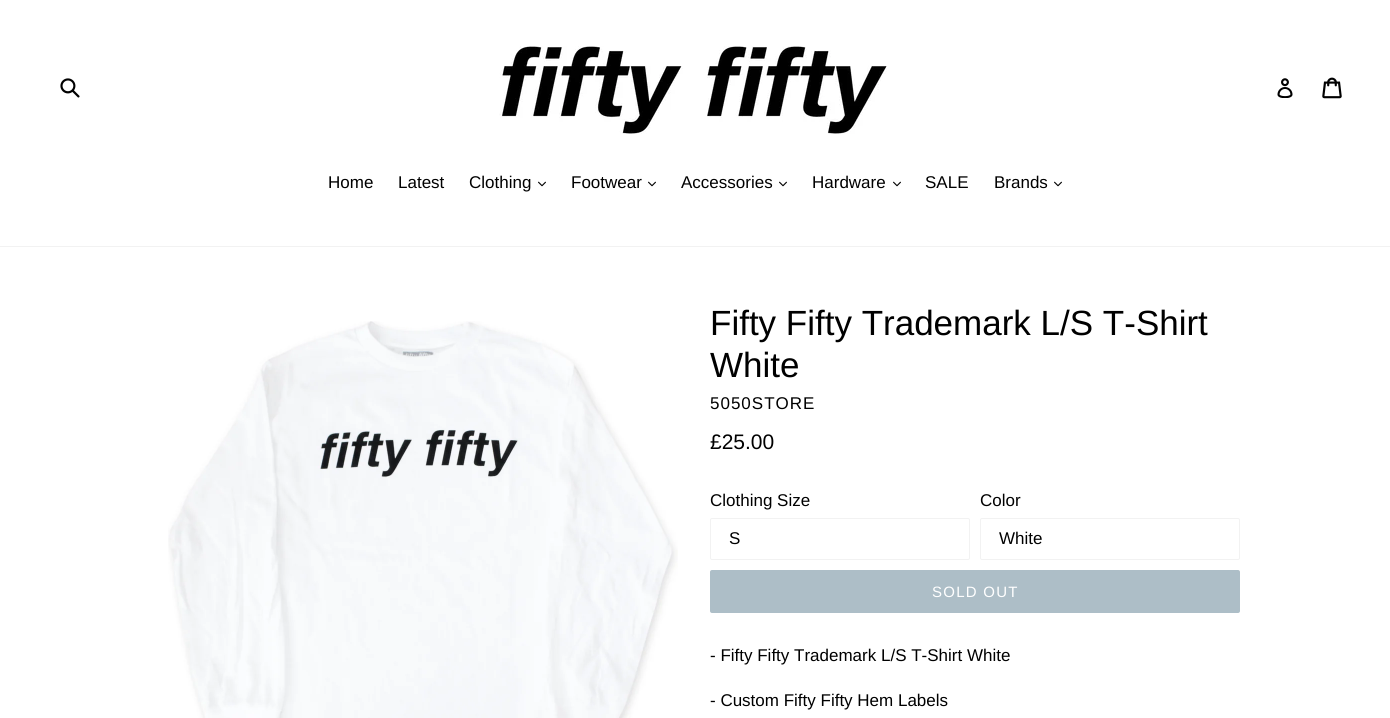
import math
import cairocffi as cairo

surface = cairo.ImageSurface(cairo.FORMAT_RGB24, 1390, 718)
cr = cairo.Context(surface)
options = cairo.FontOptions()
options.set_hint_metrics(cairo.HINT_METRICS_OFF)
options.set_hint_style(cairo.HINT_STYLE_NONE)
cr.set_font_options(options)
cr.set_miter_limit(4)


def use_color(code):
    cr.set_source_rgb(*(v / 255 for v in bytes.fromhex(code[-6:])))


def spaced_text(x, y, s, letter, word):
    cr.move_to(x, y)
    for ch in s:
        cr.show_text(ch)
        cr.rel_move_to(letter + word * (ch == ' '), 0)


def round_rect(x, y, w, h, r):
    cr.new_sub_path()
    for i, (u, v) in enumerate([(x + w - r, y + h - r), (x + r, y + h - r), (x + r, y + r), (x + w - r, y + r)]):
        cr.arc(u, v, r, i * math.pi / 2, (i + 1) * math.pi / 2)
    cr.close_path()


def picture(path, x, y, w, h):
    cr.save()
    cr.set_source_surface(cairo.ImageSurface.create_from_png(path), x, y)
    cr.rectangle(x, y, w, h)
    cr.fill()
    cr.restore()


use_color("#ffffff")
cr.paint()
picture("img1.png", 60, 78, 20, 20)
picture("img2.png", 499, 46, 388, 88)
picture("img3.png", 1277, 78, 16, 20)
picture("img4.png", 1322, 77, 20, 22)
use_color("#f2f2f2")
cr.rectangle(0, 246, 1390, 1)
cr.fill()
cr.select_font_face("Liberation Sans")
cr.set_font_size(17)
use_color("#000000")
cr.move_to(328, 188)
cr.show_text("Home")
cr.move_to(398, 188)
cr.show_text("Latest")
cr.move_to(469, 188)
cr.show_text("Clothing")
picture("img5.png", 538, 181, 8, 6)
cr.move_to(571, 188)
cr.show_text("Footwear")
picture("img5.png", 648, 181, 8, 6)
cr.move_to(681, 188)
cr.show_text("Accessories")
picture("img5.png", 779, 181, 8, 6)
cr.move_to(812, 188)
cr.show_text("Hardware")
picture("img5.png", 893, 181, 8, 6)
cr.move_to(925, 188)
cr.show_text("SALE")
cr.move_to(994, 188)
cr.show_text("Brands")
picture("img5.png", 1054, 181, 8, 6)
picture("img6.png", 168, 321, 510, 397)
cr.set_font_size(35)
cr.move_to(710, 335)
cr.show_text("Fifty Fifty Trademark L/S T-Shirt")
cr.move_to(710, 377)
cr.show_text("White")
cr.set_font_size(17)
spaced_text(710, 409, "5050STORE", 1, 0)
cr.set_font_size(21)
cr.move_to(710, 449)
cr.show_text("£25.00")
cr.set_font_size(17)
cr.move_to(710, 506)
cr.show_text("Clothing Size")
round_rect(710.5, 518.5, 259, 41, 1.5)
use_color("#f2f2f2")
cr.set_line_width(1)
cr.stroke()
use_color("#000000")
cr.move_to(729, 544)
cr.show_text("S")
cr.move_to(980, 506)
cr.show_text("Color")
round_rect(980.5, 518.5, 259, 41, 1.5)
use_color("#f2f2f2")
cr.stroke()
use_color("#000000")
cr.move_to(999, 544)
cr.show_text("White")
use_color("#adbec7")
round_rect(710, 570, 530, 43, 2)
cr.fill()
cr.set_font_size(15)
use_color("#ffffff")
spaced_text(932, 597, "SOLD OUT", 1.25, 0)
cr.set_font_size(17)
use_color("#000000")
cr.move_to(710, 661)
cr.show_text("- Fifty Fifty Trademark L/S T-Shirt White")
cr.move_to(710, 706)
cr.show_text("- Custom Fifty Fifty Hem Labels")
surface.write_to_png("result.png")
